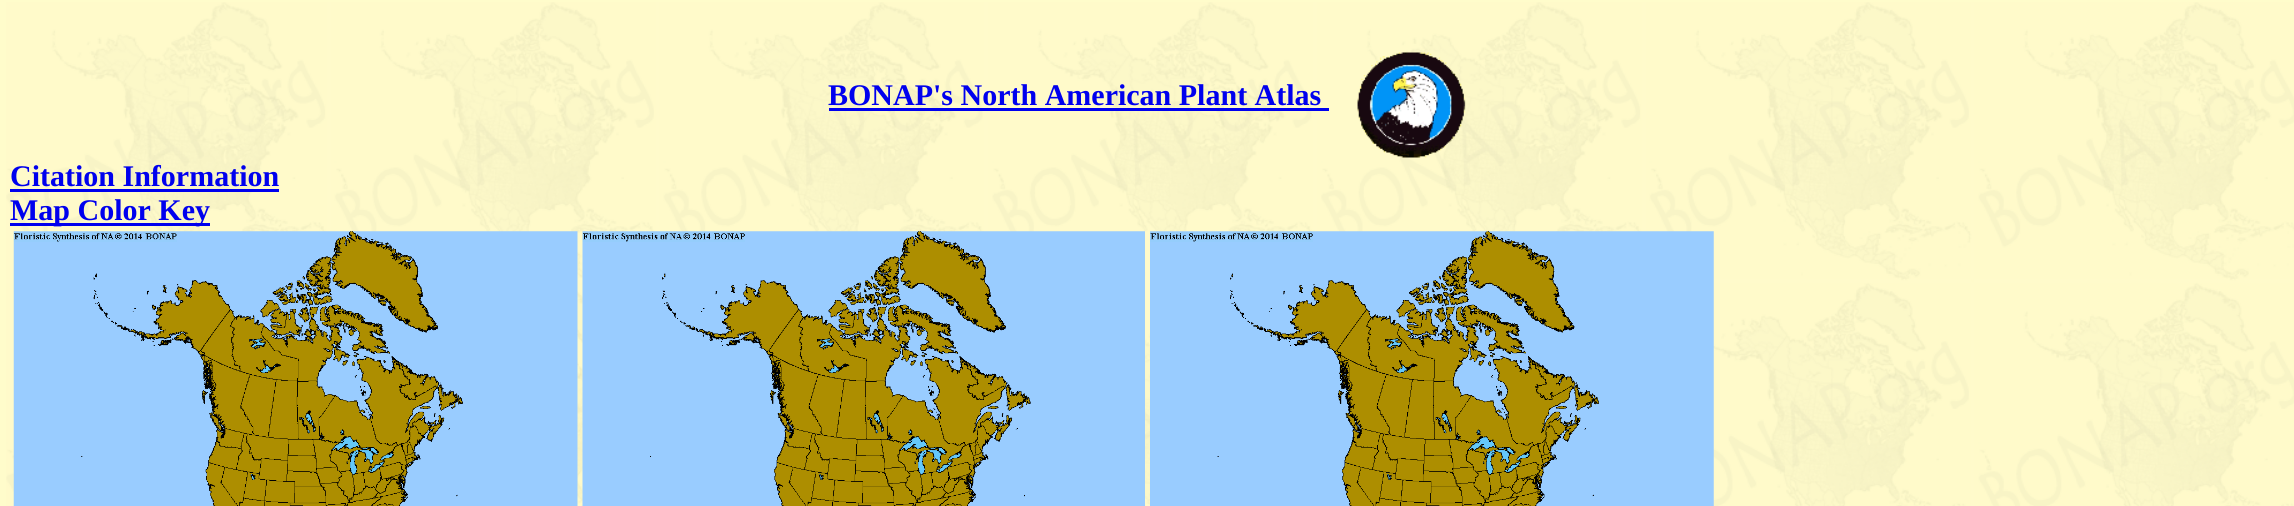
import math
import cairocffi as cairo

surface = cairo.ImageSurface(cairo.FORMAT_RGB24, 2294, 506)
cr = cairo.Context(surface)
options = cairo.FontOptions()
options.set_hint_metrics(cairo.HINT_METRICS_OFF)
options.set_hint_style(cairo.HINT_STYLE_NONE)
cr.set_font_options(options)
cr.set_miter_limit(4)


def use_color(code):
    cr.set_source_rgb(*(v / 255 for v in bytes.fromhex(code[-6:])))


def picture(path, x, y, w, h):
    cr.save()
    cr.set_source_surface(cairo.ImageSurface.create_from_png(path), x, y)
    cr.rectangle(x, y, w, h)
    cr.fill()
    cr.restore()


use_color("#fffccb")
cr.paint()
picture("img1.png", 6, 2, 2288, 504)
cr.select_font_face("Liberation Serif", cairo.FONT_SLANT_NORMAL, cairo.FONT_WEIGHT_BOLD)
cr.set_font_size(30)
use_color("#0000ee")
cr.move_to(828, 105)
cr.show_text("BONAP's North American Plant Atlas")
cr.rectangle(829, 108, 500, 3)
cr.fill()
picture("img2.png", 1357, 52, 109, 106)
cr.move_to(10, 186)
cr.show_text("Citation Information")
cr.rectangle(10, 189, 269, 3)
cr.fill()
cr.rectangle(10, 223, 200, 3)
cr.fill()
cr.move_to(10, 220)
cr.show_text("Map Color Key")
picture("img3.png", 13, 231, 565, 275)
picture("img4.png", 582, 231, 563, 275)
picture("img5.png", 1150, 231, 564, 275)
surface.write_to_png("result.png")
